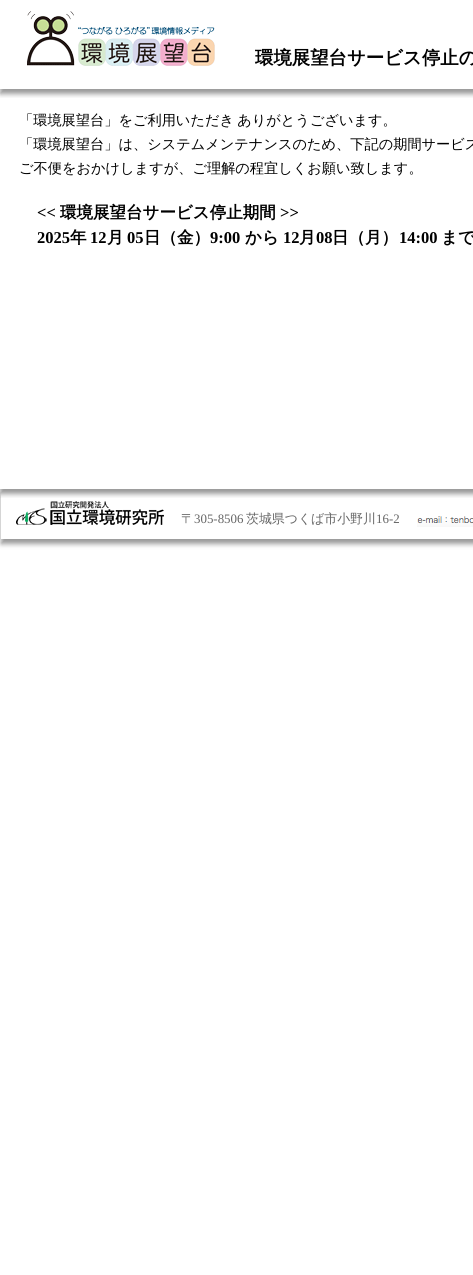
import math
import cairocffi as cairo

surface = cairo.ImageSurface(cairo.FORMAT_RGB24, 473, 1275)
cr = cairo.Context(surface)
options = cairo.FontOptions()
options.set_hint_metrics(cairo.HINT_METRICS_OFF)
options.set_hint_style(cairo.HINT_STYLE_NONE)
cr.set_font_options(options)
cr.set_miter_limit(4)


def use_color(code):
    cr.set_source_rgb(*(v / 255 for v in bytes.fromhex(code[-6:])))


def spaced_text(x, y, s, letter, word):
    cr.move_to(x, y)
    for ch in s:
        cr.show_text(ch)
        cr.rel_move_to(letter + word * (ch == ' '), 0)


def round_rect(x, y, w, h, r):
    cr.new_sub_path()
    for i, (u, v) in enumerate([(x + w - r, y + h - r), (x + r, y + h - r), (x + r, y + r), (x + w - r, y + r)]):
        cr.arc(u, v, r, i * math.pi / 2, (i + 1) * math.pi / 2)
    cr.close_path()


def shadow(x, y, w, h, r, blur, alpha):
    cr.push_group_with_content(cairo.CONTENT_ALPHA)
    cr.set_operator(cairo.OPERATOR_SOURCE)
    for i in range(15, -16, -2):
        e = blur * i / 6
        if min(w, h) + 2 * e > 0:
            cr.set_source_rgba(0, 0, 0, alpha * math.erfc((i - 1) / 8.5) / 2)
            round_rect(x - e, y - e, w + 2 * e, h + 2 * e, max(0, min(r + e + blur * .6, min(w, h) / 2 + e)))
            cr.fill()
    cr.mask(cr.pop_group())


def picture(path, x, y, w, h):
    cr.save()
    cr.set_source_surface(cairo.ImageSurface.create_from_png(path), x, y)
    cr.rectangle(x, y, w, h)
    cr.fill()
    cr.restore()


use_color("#ffffff")
cr.paint()
cr.save()
cr.rectangle(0, 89, 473, 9)
cr.clip()
use_color("#000000")
shadow(0, 15, 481, 79, 0, 2.5, 0.4)
cr.restore()
picture("img1.png", 27, 11, 188, 55)
cr.select_font_face("WenQuanYi Zen Hei", cairo.FONT_SLANT_NORMAL, cairo.FONT_WEIGHT_BOLD)
cr.set_font_size(18.4)
use_color("#000000")
cr.move_to(255, 64)
cr.show_text("環境展望台サービス停止の")
cr.save()
cr.rectangle(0, 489, 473, 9)
cr.clip()
use_color("#000000")
shadow(0, 94, 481, 400, 0, 2.5, 0.4)
cr.restore()
cr.select_font_face("WenQuanYi Zen Hei Medium")
cr.set_font_size(14.2)
spaced_text(19, 125, "「環境展望台」をご利用いただき ありがとうございます。", 0, -1)
cr.move_to(19, 149)
cr.show_text("「環境展望台」は、システムメンテナンスのため、下記の期間サービス")
cr.move_to(19, 173)
cr.show_text("ご不便をおかけしますが、ご理解の程宜しくお願い致します。")
cr.select_font_face("Liberation Serif", cairo.FONT_SLANT_NORMAL, cairo.FONT_WEIGHT_BOLD)
cr.set_font_size(16.5)
cr.move_to(37, 218)
cr.show_text("<<")
cr.select_font_face("WenQuanYi Zen Hei", cairo.FONT_SLANT_NORMAL, cairo.FONT_WEIGHT_BOLD)
cr.move_to(60, 218)
cr.show_text("環境展望台サービス停止期間")
cr.select_font_face("Liberation Serif", cairo.FONT_SLANT_NORMAL, cairo.FONT_WEIGHT_BOLD)
cr.move_to(280, 218)
cr.show_text(">>")
cr.move_to(37, 243)
cr.show_text("2025")
cr.select_font_face("WenQuanYi Zen Hei", cairo.FONT_SLANT_NORMAL, cairo.FONT_WEIGHT_BOLD)
cr.move_to(70, 243)
cr.show_text("年")
cr.select_font_face("Liberation Serif", cairo.FONT_SLANT_NORMAL, cairo.FONT_WEIGHT_BOLD)
cr.move_to(90, 243)
cr.show_text("12")
cr.select_font_face("WenQuanYi Zen Hei", cairo.FONT_SLANT_NORMAL, cairo.FONT_WEIGHT_BOLD)
cr.move_to(107, 243)
cr.show_text("月")
cr.select_font_face("Liberation Serif", cairo.FONT_SLANT_NORMAL, cairo.FONT_WEIGHT_BOLD)
cr.move_to(127, 243)
cr.show_text("05")
cr.select_font_face("WenQuanYi Zen Hei", cairo.FONT_SLANT_NORMAL, cairo.FONT_WEIGHT_BOLD)
cr.move_to(144, 243)
cr.show_text("日（金）")
cr.select_font_face("Liberation Serif", cairo.FONT_SLANT_NORMAL, cairo.FONT_WEIGHT_BOLD)
cr.move_to(210, 243)
cr.show_text("9:00")
cr.select_font_face("WenQuanYi Zen Hei", cairo.FONT_SLANT_NORMAL, cairo.FONT_WEIGHT_BOLD)
cr.move_to(245, 243)
cr.show_text("から")
cr.select_font_face("Liberation Serif", cairo.FONT_SLANT_NORMAL, cairo.FONT_WEIGHT_BOLD)
cr.move_to(283, 243)
cr.show_text("12")
cr.select_font_face("WenQuanYi Zen Hei", cairo.FONT_SLANT_NORMAL, cairo.FONT_WEIGHT_BOLD)
cr.move_to(299, 243)
cr.show_text("月")
cr.select_font_face("Liberation Serif", cairo.FONT_SLANT_NORMAL, cairo.FONT_WEIGHT_BOLD)
cr.move_to(316, 243)
cr.show_text("08")
cr.select_font_face("WenQuanYi Zen Hei", cairo.FONT_SLANT_NORMAL, cairo.FONT_WEIGHT_BOLD)
cr.move_to(332, 243)
cr.show_text("日（月）")
cr.select_font_face("Liberation Serif", cairo.FONT_SLANT_NORMAL, cairo.FONT_WEIGHT_BOLD)
cr.move_to(399, 243)
cr.show_text("14:00")
cr.select_font_face("WenQuanYi Zen Hei", cairo.FONT_SLANT_NORMAL, cairo.FONT_WEIGHT_BOLD)
cr.move_to(441, 243)
cr.show_text("まで")
cr.save()
cr.set_fill_rule(cairo.FILL_RULE_EVEN_ODD)
cr.new_path()
cr.move_to(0, 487)
cr.line_to(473, 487)
cr.line_to(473, 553)
cr.line_to(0, 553)
cr.close_path()
cr.move_to(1, 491)
cr.line_to(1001, 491)
cr.line_to(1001, 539)
cr.line_to(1, 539)
cr.close_path()
cr.clip()
use_color("#000000")
shadow(1, 496, 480, 48, 0, 2.5, 0.4)
cr.restore()
picture("img2.png", 16, 501, 148, 24)
cr.select_font_face("WenQuanYi Zen Hei Medium")
cr.set_font_size(12.9)
use_color("#666666")
cr.move_to(181, 523)
cr.show_text("〒")
cr.select_font_face("Liberation Serif")
cr.move_to(194, 523)
cr.show_text("305-8506")
cr.select_font_face("WenQuanYi Zen Hei Medium")
cr.move_to(246, 523)
cr.show_text("茨城県つくば市小野川")
cr.select_font_face("Liberation Serif")
cr.move_to(376, 523)
cr.show_text("16-2")
picture("img3.png", 417, 516, 56, 11)
surface.write_to_png("result.png")
